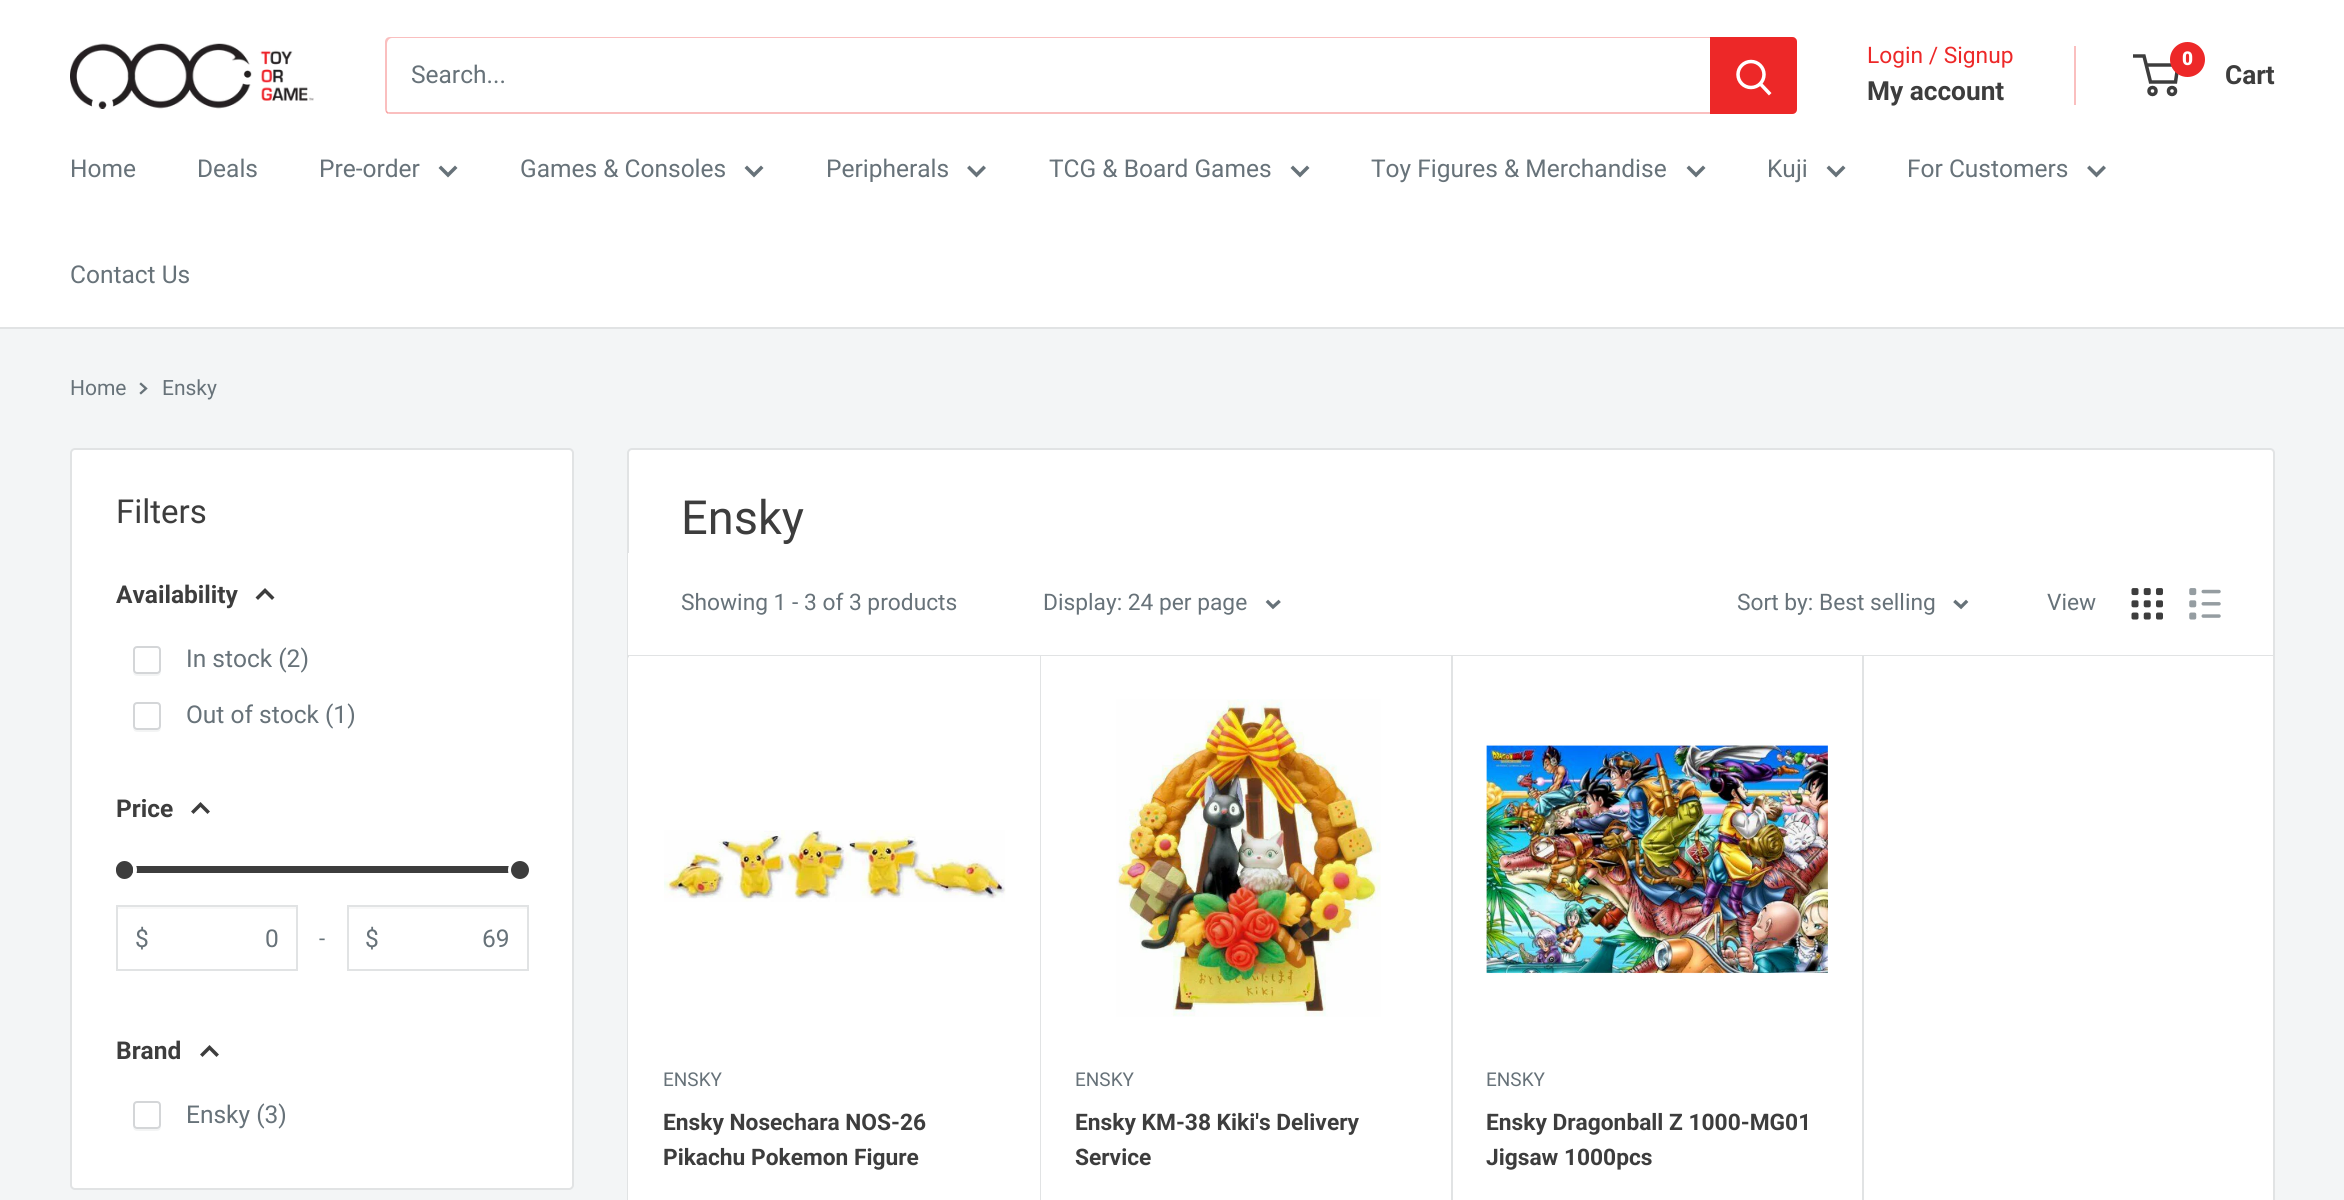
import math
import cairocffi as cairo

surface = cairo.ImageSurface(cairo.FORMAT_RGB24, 2344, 1200)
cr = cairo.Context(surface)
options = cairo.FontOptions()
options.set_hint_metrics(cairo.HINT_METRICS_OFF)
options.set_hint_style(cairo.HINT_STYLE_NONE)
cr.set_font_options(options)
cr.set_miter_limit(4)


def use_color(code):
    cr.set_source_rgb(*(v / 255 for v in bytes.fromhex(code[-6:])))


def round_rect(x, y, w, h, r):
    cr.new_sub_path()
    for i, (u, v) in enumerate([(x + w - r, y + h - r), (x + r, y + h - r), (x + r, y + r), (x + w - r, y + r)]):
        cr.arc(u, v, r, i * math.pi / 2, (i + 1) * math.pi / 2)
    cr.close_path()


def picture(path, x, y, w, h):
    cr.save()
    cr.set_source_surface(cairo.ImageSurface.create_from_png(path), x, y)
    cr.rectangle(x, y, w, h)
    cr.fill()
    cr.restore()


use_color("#f3f5f6")
cr.paint()
use_color("#ffffff")
cr.rectangle(0, 0, 2344, 327)
cr.fill()
picture("img1.png", 70, 43, 244, 66)
use_color("#fabfbf")
cr.new_path()
cr.move_to(386, 111)
cr.curve_to(386, 113, 388, 114, 390, 114)
cr.line_to(1792, 114)
cr.curve_to(1795, 114, 1797, 112, 1797, 109)
cr.line_to(1797, 42)
cr.curve_to(1797, 41, 1797, 40, 1796, 39)
cr.line_to(1796, 107)
cr.curve_to(1796, 110, 1793, 112, 1790, 112)
cr.line_to(388, 112)
cr.close_path()
cr.fill()
cr.set_source_rgba(0.929, 0.157, 0.157, 0.3)
cr.new_path()
cr.move_to(392, 38)
cr.line_to(1795, 38)
cr.curve_to(1794, 37, 1793, 37, 1792, 37)
cr.line_to(390, 37)
cr.curve_to(387, 37, 385, 39, 385, 42)
cr.line_to(385, 109)
cr.curve_to(385, 111, 386, 113, 388, 114)
cr.line_to(387, 110)
cr.line_to(387, 44)
cr.curve_to(387, 41, 389, 38, 392, 38)
cr.close_path()
cr.fill()
cr.select_font_face("Roboto")
cr.set_font_size(24.5)
use_color("#677279")
cr.move_to(411, 83)
cr.show_text("Search...")
use_color("#ed2828")
cr.new_path()
cr.move_to(1710, 37)
cr.line_to(1792, 37)
cr.curve_to(1795, 37, 1797, 39, 1797, 42)
cr.line_to(1797, 109)
cr.curve_to(1797, 112, 1795, 114, 1792, 114)
cr.line_to(1710, 114)
cr.close_path()
cr.fill()
cr.new_path()
cr.move_to(1769, 93)
cr.line_to(1760.5, 84)
use_color("#ffffff")
cr.set_line_width(3.5)
cr.set_line_cap(cairo.LINE_CAP_SQUARE)
cr.stroke()
cr.arc(1751, 74.5, 13, 0, 2 * math.pi)
cr.set_line_cap(cairo.LINE_CAP_BUTT)
cr.stroke()
cr.set_font_size(22.75)
use_color("#ed2828")
cr.move_to(1867, 63)
cr.show_text("Login / Signup")
use_color("#fabfbf")
cr.rectangle(2074, 46, 2, 59)
cr.fill()
cr.select_font_face("Roboto", cairo.FONT_SLANT_NORMAL, cairo.FONT_WEIGHT_BOLD)
cr.set_font_size(26.25)
use_color("#3d3d3d")
cr.move_to(1867, 100)
cr.show_text("My account")
cr.new_path()
cr.arc(2152.5, 91, 3.5, 0, 2 * math.pi)
cr.stroke()
cr.arc(2172, 91, 3.5, 0, 2 * math.pi)
cr.stroke()
cr.new_path()
cr.move_to(2146, 65)
cr.line_to(2178, 65)
cr.line_to(2175.5, 82)
cr.line_to(2150.5, 82)
cr.line_to(2144, 56)
cr.line_to(2133, 56)
cr.stroke()
use_color("#ed2828")
cr.arc(2187.5, 59.5, 17.5, 0, 2 * math.pi)
cr.fill()
cr.select_font_face("Roboto Black")
cr.set_font_size(19)
use_color("#ffffff")
cr.move_to(2182, 65)
cr.show_text("0")
cr.select_font_face("Roboto", cairo.FONT_SLANT_NORMAL, cairo.FONT_WEIGHT_BOLD)
cr.set_font_size(26.25)
use_color("#3d3d3d")
cr.move_to(2225, 84)
cr.show_text("Cart")
use_color("#e1e3e4")
cr.rectangle(0, 327, 2344, 2)
cr.fill()
cr.select_font_face("Roboto")
cr.set_font_size(24.5)
use_color("#677279")
cr.move_to(70, 177)
cr.show_text("Home")
cr.move_to(197, 177)
cr.show_text("Deals")
cr.move_to(319, 177)
cr.show_text("Pre-order")
cr.new_path()
cr.move_to(455, 168)
cr.line_to(448, 175)
cr.line_to(441, 168)
cr.set_line_cap(cairo.LINE_CAP_SQUARE)
cr.stroke()
cr.move_to(520, 177)
cr.show_text("Games & Consoles")
cr.new_path()
cr.move_to(761, 168)
cr.line_to(754, 175)
cr.line_to(747, 168)
cr.stroke()
cr.move_to(826, 177)
cr.show_text("Peripherals")
cr.new_path()
cr.move_to(983.5, 168)
cr.line_to(976.5, 175)
cr.line_to(969.5, 168)
cr.stroke()
cr.move_to(1049, 177)
cr.show_text("TCG & Board Games")
cr.new_path()
cr.move_to(1307, 168)
cr.line_to(1300, 175)
cr.line_to(1293, 168)
cr.stroke()
cr.move_to(1371, 177)
cr.show_text("Toy Figures & Merchandise")
cr.new_path()
cr.move_to(1703, 168)
cr.line_to(1696, 175)
cr.line_to(1689, 168)
cr.stroke()
cr.move_to(1767, 177)
cr.show_text("Kuji")
cr.new_path()
cr.move_to(1843, 168)
cr.line_to(1836, 175)
cr.line_to(1829, 168)
cr.stroke()
cr.move_to(1907, 177)
cr.show_text("For Customers")
cr.new_path()
cr.move_to(2103.5, 168)
cr.line_to(2096.5, 175)
cr.line_to(2089.5, 168)
cr.stroke()
cr.move_to(70, 283)
cr.show_text("Contact Us")
cr.set_font_size(21)
cr.move_to(70, 395)
cr.show_text("Home")
cr.new_path()
cr.move_to(141, 384)
cr.line_to(146, 388.5)
cr.line_to(141, 393)
cr.set_line_width(2.3)
cr.stroke()
cr.move_to(162, 395)
cr.show_text("Ensky")
use_color("#ffffff")
round_rect(71, 449, 502, 740, 4)
cr.fill_preserve()
use_color("#e1e3e4")
cr.set_line_width(2)
cr.set_line_cap(cairo.LINE_CAP_BUTT)
cr.stroke()
cr.set_font_size(33)
use_color("#3d3d3d")
cr.move_to(116, 523)
cr.show_text("Filters")
cr.select_font_face("Roboto", cairo.FONT_SLANT_NORMAL, cairo.FONT_WEIGHT_BOLD)
cr.set_font_size(24.5)
cr.move_to(116, 603)
cr.show_text("Availability")
cr.new_path()
cr.move_to(258, 597.5)
cr.line_to(265, 590.5)
cr.line_to(272, 597.5)
cr.set_line_width(3.5)
cr.set_line_cap(cairo.LINE_CAP_SQUARE)
cr.stroke()
use_color("#f3f4f4")
cr.new_path()
cr.move_to(133, 670)
cr.curve_to(133, 676, 135, 676, 140.5, 676)
cr.line_to(153.5, 676)
cr.curve_to(159, 676, 161, 676, 161, 670)
cr.curve_to(161, 672, 159.5, 674, 157.5, 674)
cr.line_to(136.5, 674)
cr.curve_to(134.5, 674, 133, 672, 133, 670)
cr.close_path()
cr.fill()
round_rect(134, 647, 26, 26, 3)
use_color("#d4d6d8")
cr.set_line_width(2)
cr.set_line_cap(cairo.LINE_CAP_BUTT)
cr.stroke()
cr.select_font_face("Roboto")
use_color("#677279")
cr.move_to(186, 667)
cr.show_text("In stock (2)")
use_color("#f3f4f4")
cr.new_path()
cr.move_to(133, 726)
cr.curve_to(133, 732, 135, 732, 140.5, 732)
cr.line_to(153.5, 732)
cr.curve_to(159, 732, 161, 732, 161, 726)
cr.curve_to(161, 728, 159.5, 730, 157.5, 730)
cr.line_to(136.5, 730)
cr.curve_to(134.5, 730, 133, 728, 133, 726)
cr.close_path()
cr.fill()
round_rect(134, 703, 26, 26, 3)
use_color("#d4d6d8")
cr.stroke()
use_color("#677279")
cr.move_to(186, 723)
cr.show_text("Out of stock (1)")
cr.select_font_face("Roboto", cairo.FONT_SLANT_NORMAL, cairo.FONT_WEIGHT_BOLD)
use_color("#3d3d3d")
cr.move_to(116, 817)
cr.show_text("Price")
cr.new_path()
cr.move_to(193.5, 811.5)
cr.line_to(200.5, 804.5)
cr.line_to(207.5, 811.5)
cr.set_line_width(3.5)
cr.set_line_cap(cairo.LINE_CAP_SQUARE)
cr.stroke()
cr.new_path()
cr.move_to(119.5, 866)
cr.line_to(525, 866)
cr.line_to(525, 873)
cr.line_to(119.5, 873)
cr.curve_to(117.5, 873, 116, 871.5, 116, 869.5)
cr.curve_to(116, 867.5, 117.5, 866, 119.5, 866)
cr.close_path()
cr.fill()
round_rect(114, 860, 21, 20, 10)
use_color("#ffffff")
cr.set_line_width(4)
cr.set_line_cap(cairo.LINE_CAP_BUTT)
cr.stroke()
use_color("#3d3d3d")
round_rect(116, 861, 17, 18, 8.5)
cr.fill()
cr.arc(520, 870, 10, 0, 2 * math.pi)
use_color("#ffffff")
cr.stroke()
use_color("#3d3d3d")
cr.arc(520, 870, 9, 0, 2 * math.pi)
cr.fill()
use_color("#f8f8f8")
cr.rectangle(117, 907, 179, 2)
cr.fill()
cr.rectangle(117, 906, 180, 64)
use_color("#e1e3e4")
cr.set_line_width(2)
cr.stroke()
cr.select_font_face("Roboto")
use_color("#677279")
cr.move_to(135, 947)
cr.show_text("$")
cr.move_to(265, 947)
cr.show_text("0")
cr.set_font_size(22)
cr.move_to(319, 946)
cr.show_text("-")
use_color("#f8f8f8")
cr.rectangle(348, 907, 179, 2)
cr.fill()
cr.rectangle(348, 906, 180, 64)
use_color("#e1e3e4")
cr.stroke()
cr.set_font_size(24.5)
use_color("#677279")
cr.move_to(365, 947)
cr.show_text("$")
cr.move_to(482, 947)
cr.show_text("69")
cr.select_font_face("Roboto", cairo.FONT_SLANT_NORMAL, cairo.FONT_WEIGHT_BOLD)
use_color("#3d3d3d")
cr.move_to(116, 1059)
cr.show_text("Brand")
cr.new_path()
cr.move_to(202.5, 1054.5)
cr.line_to(209.5, 1047.5)
cr.line_to(216.5, 1054.5)
cr.set_line_width(3.5)
cr.set_line_cap(cairo.LINE_CAP_SQUARE)
cr.stroke()
use_color("#f3f4f4")
cr.new_path()
cr.move_to(133, 1125)
cr.curve_to(133, 1131, 135, 1131, 140.5, 1131)
cr.line_to(153.5, 1131)
cr.curve_to(159, 1131, 161, 1131, 161, 1125)
cr.curve_to(161, 1127, 159.5, 1129, 157.5, 1129)
cr.line_to(136.5, 1129)
cr.curve_to(134.5, 1129, 133, 1127, 133, 1125)
cr.close_path()
cr.fill()
round_rect(134, 1102, 26, 26, 3)
use_color("#d4d6d8")
cr.set_line_width(2)
cr.set_line_cap(cairo.LINE_CAP_BUTT)
cr.stroke()
cr.select_font_face("Roboto")
use_color("#677279")
cr.move_to(186, 1123)
cr.show_text("Ensky (3)")
use_color("#ffffff")
round_rect(628, 449, 1646, 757, 4)
cr.fill_preserve()
use_color("#e1e3e4")
cr.stroke()
cr.set_font_size(47)
use_color("#3d3d3d")
cr.move_to(681, 534)
cr.show_text("Ensky")
use_color("#ffffff")
round_rect(628, 655, 1645, 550, 5)
cr.fill()
cr.new_path()
cr.move_to(633, 655)
cr.line_to(1040, 655)
cr.line_to(1040, 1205)
cr.line_to(633, 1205)
cr.curve_to(630, 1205, 628, 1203, 628, 1200)
cr.line_to(628, 660)
cr.curve_to(628, 657, 630, 655, 633, 655)
cr.close_path()
cr.fill()
use_color("#e1e3e4")
cr.rectangle(1040, 655, 1, 545)
cr.fill()
cr.rectangle(1451, 655, 2, 545)
cr.fill()
cr.rectangle(1862, 655, 2, 545)
cr.fill()
cr.new_path()
cr.move_to(628, 555)
cr.line_to(628, 656)
cr.line_to(2273, 656)
cr.line_to(2273, 654)
cr.line_to(628, 654)
cr.close_path()
cr.fill()
use_color("#ffffff")
cr.rectangle(628, 553, 1645, 102)
cr.fill()
cr.set_font_size(22.75)
use_color("#677279")
cr.move_to(681, 610)
cr.show_text("Showing 1 - 3 of 3 products")
cr.move_to(1043, 610)
cr.show_text("Display: 24 per page")
cr.new_path()
cr.move_to(1278.5, 602)
cr.line_to(1273, 607)
cr.line_to(1268, 602)
cr.set_line_width(3.3)
cr.set_line_cap(cairo.LINE_CAP_SQUARE)
cr.stroke()
cr.move_to(1737, 610)
cr.show_text("Sort by: Best selling")
cr.new_path()
cr.move_to(1966, 602)
cr.line_to(1961, 607)
cr.line_to(1955.5, 602)
cr.stroke()
cr.move_to(2047, 610)
cr.show_text("View")
picture("img2.png", 2131, 588, 32, 32)
picture("img3.png", 2189, 588, 32, 32)
picture("img4.png", 664, 830, 342, 72)
cr.set_font_size(19)
cr.move_to(663, 1086)
cr.show_text("ENSKY")
cr.select_font_face("Roboto", cairo.FONT_SLANT_NORMAL, cairo.FONT_WEIGHT_BOLD)
cr.set_font_size(22.75)
use_color("#3d3d3d")
cr.move_to(663, 1130)
cr.show_text("Ensky Nosechara NOS-26")
cr.move_to(663, 1165)
cr.show_text("Pikachu Pokemon Figure")
picture("img5.png", 1116, 699, 265, 318)
cr.select_font_face("Roboto")
cr.set_font_size(19)
use_color("#677279")
cr.move_to(1075, 1086)
cr.show_text("ENSKY")
cr.select_font_face("Roboto", cairo.FONT_SLANT_NORMAL, cairo.FONT_WEIGHT_BOLD)
cr.set_font_size(22.75)
use_color("#3d3d3d")
cr.move_to(1075, 1130)
cr.show_text("Ensky KM-38 Kiki's Delivery")
cr.move_to(1075, 1165)
cr.show_text("Service")
picture("img6.png", 1486, 743, 342, 232)
cr.select_font_face("Roboto")
cr.set_font_size(19)
use_color("#677279")
cr.move_to(1486, 1086)
cr.show_text("ENSKY")
cr.select_font_face("Roboto", cairo.FONT_SLANT_NORMAL, cairo.FONT_WEIGHT_BOLD)
cr.set_font_size(22.75)
use_color("#3d3d3d")
cr.move_to(1486, 1130)
cr.show_text("Ensky Dragonball Z 1000-MG01")
cr.move_to(1486, 1165)
cr.show_text("Jigsaw 1000pcs")
surface.write_to_png("result.png")
